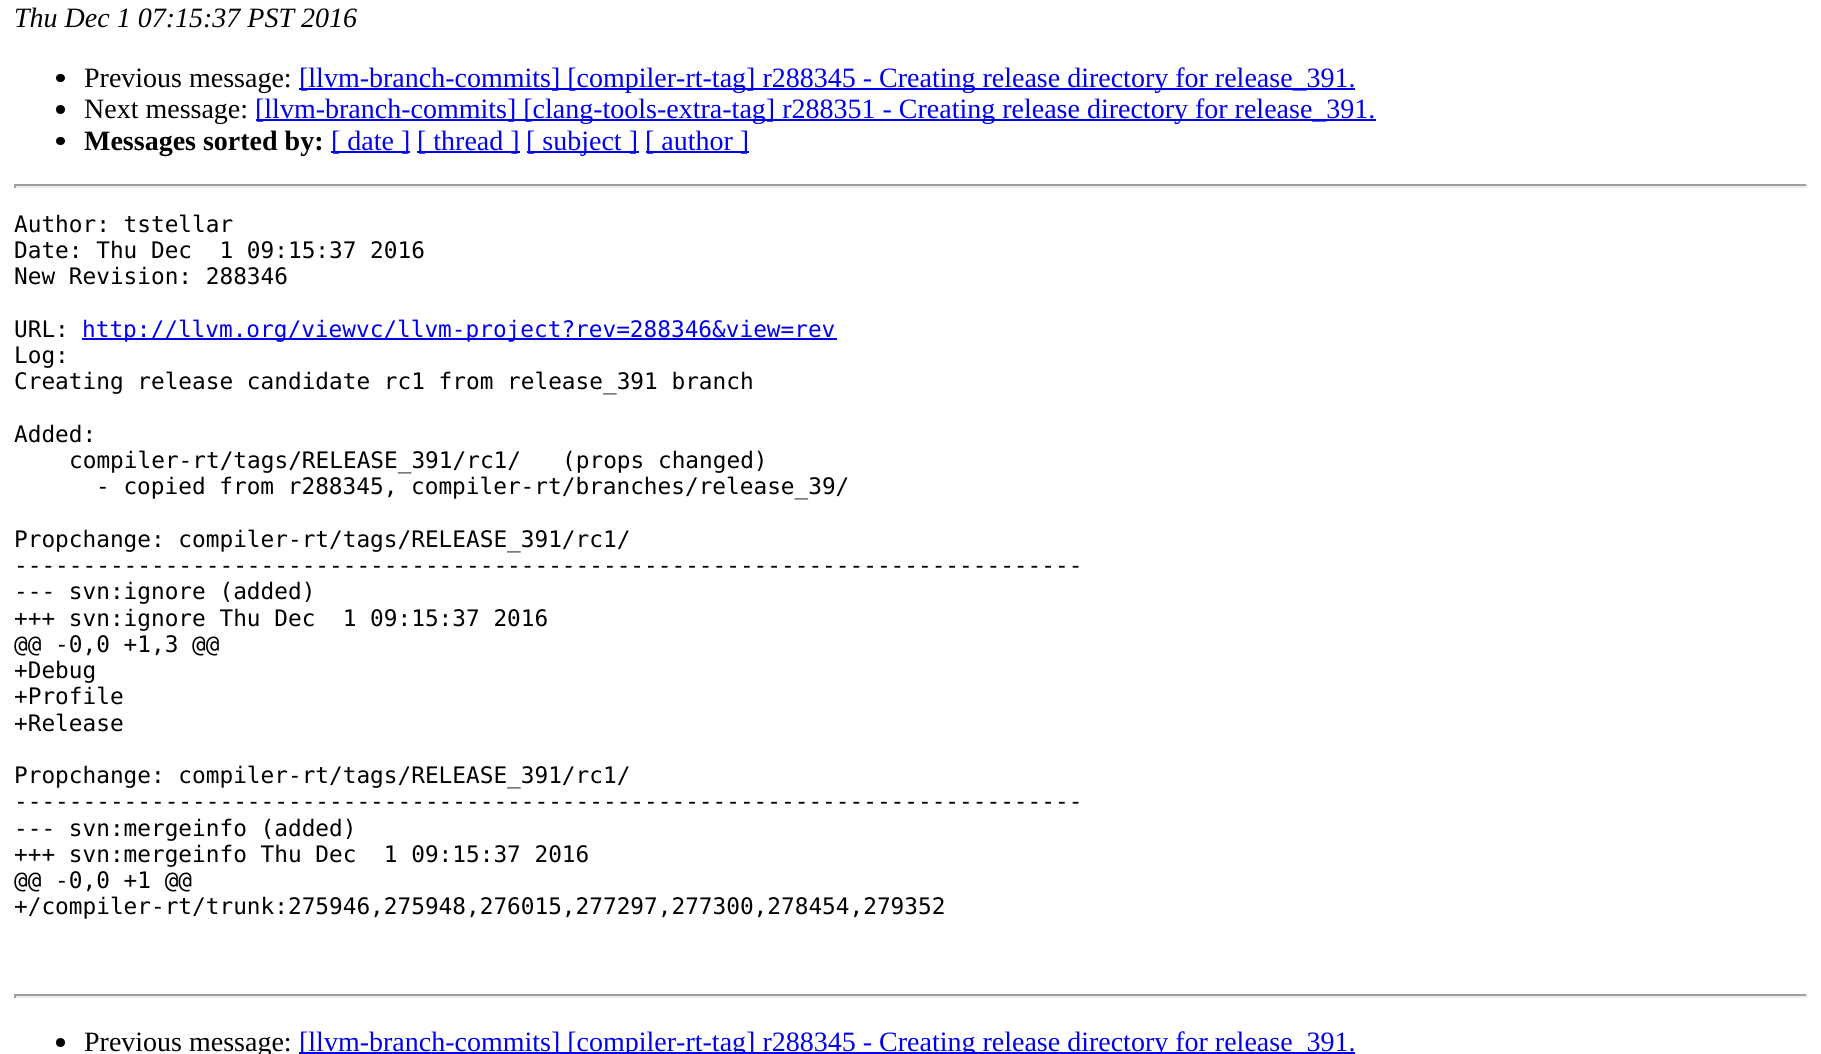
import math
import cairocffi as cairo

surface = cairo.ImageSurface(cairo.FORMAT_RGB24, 1821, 1054)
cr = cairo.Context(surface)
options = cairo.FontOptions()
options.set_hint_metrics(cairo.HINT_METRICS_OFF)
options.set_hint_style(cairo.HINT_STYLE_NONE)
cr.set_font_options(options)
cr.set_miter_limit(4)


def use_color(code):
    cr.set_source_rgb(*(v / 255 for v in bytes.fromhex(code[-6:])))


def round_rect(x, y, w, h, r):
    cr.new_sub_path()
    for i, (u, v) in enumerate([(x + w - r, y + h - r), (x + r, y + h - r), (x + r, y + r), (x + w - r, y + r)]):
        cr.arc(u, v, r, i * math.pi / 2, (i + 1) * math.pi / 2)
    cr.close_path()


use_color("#ffffff")
cr.paint()
cr.select_font_face("Liberation Serif", cairo.FONT_SLANT_ITALIC)
cr.set_font_size(28)
use_color("#000000")
cr.move_to(14, 27)
cr.show_text("Thu Dec 1 07:15:37 PST 2016")
round_rect(56, 74, 9, 8, 4)
cr.fill()
cr.select_font_face("Liberation Serif")
cr.move_to(84, 87)
cr.show_text("Previous message:")
use_color("#0000ee")
cr.rectangle(299, 88, 1056, 2)
cr.fill()
cr.move_to(299, 87)
cr.show_text("[llvm-branch-commits] [compiler-rt-tag] r288345 - Creating release directory for release_391.")
use_color("#000000")
cr.new_path()
cr.arc(60.5, 109.5, 4.5, 0, 2 * math.pi)
cr.fill()
cr.move_to(84, 118)
cr.show_text("Next message:")
use_color("#0000ee")
cr.rectangle(256, 119, 1120, 2)
cr.fill()
cr.move_to(255, 118)
cr.show_text("[llvm-branch-commits] [clang-tools-extra-tag] r288351 - Creating release directory for release_391.")
use_color("#000000")
round_rect(56, 137, 9, 8, 4)
cr.fill()
cr.select_font_face("Liberation Serif", cairo.FONT_SLANT_NORMAL, cairo.FONT_WEIGHT_BOLD)
cr.move_to(84, 150)
cr.show_text("Messages sorted by:")
use_color("#0000ee")
cr.rectangle(331, 151, 79, 2)
cr.fill()
cr.select_font_face("Liberation Serif")
cr.move_to(331, 150)
cr.show_text("[ date ]")
cr.rectangle(417, 151, 103, 2)
cr.fill()
cr.move_to(417, 150)
cr.show_text("[ thread ]")
cr.rectangle(527, 151, 112, 2)
cr.fill()
cr.move_to(526, 150)
cr.show_text("[ subject ]")
cr.rectangle(646, 151, 103, 2)
cr.fill()
cr.move_to(645, 150)
cr.show_text("[ author ]")
use_color("#9f9f9f")
cr.rectangle(14, 184, 1794, 2)
cr.fill()
use_color("#eeeeee")
cr.rectangle(1806, 184, 2, 4)
cr.fill()
cr.rectangle(14, 186, 1794, 2)
cr.fill()
use_color("#9f9f9f")
cr.rectangle(14, 184, 2, 4)
cr.fill()
cr.select_font_face("DejaVu Sans Mono")
cr.set_font_size(22.75)
use_color("#000000")
cr.move_to(14, 232)
cr.show_text("Author: tstellar")
cr.move_to(14, 258)
cr.show_text("Date: Thu Dec  1 09:15:37 2016")
cr.move_to(14, 284)
cr.show_text("New Revision: 288346")
cr.move_to(14, 337)
cr.show_text("URL:")
use_color("#0000ee")
cr.rectangle(82, 338, 755, 2)
cr.fill()
cr.move_to(82, 337)
cr.show_text("http://llvm.org/viewvc/llvm-project?rev=288346&view=rev")
use_color("#000000")
cr.move_to(14, 363)
cr.show_text("Log:")
cr.move_to(14, 389)
cr.show_text("Creating release candidate rc1 from release_391 branch")
cr.move_to(14, 442)
cr.show_text("Added:")
cr.move_to(69, 468)
cr.show_text("compiler-rt/tags/RELEASE_391/rc1/   (props changed)")
cr.move_to(96, 494)
cr.show_text("- copied from r288345, compiler-rt/branches/release_39/")
cr.move_to(14, 547)
cr.show_text("Propchange: compiler-rt/tags/RELEASE_391/rc1/")
cr.move_to(14, 573)
cr.show_text("------------------------------------------------------------------------------")
cr.move_to(14, 599)
cr.show_text("--- svn:ignore (added)")
cr.move_to(14, 626)
cr.show_text("+++ svn:ignore Thu Dec  1 09:15:37 2016")
cr.move_to(14, 652)
cr.show_text("@@ -0,0 +1,3 @@")
cr.move_to(14, 678)
cr.show_text("+Debug")
cr.move_to(14, 704)
cr.show_text("+Profile")
cr.move_to(14, 731)
cr.show_text("+Release")
cr.move_to(14, 783)
cr.show_text("Propchange: compiler-rt/tags/RELEASE_391/rc1/")
cr.move_to(14, 809)
cr.show_text("------------------------------------------------------------------------------")
cr.move_to(14, 836)
cr.show_text("--- svn:mergeinfo (added)")
cr.move_to(14, 862)
cr.show_text("+++ svn:mergeinfo Thu Dec  1 09:15:37 2016")
cr.move_to(14, 888)
cr.show_text("@@ -0,0 +1 @@")
cr.move_to(14, 914)
cr.show_text("+/compiler-rt/trunk:275946,275948,276015,277297,277300,278454,279352")
use_color("#9f9f9f")
cr.rectangle(14, 994, 1794, 2)
cr.fill()
use_color("#eeeeee")
cr.rectangle(1806, 994, 2, 4)
cr.fill()
cr.rectangle(14, 996, 1794, 2)
cr.fill()
use_color("#9f9f9f")
cr.rectangle(14, 994, 2, 4)
cr.fill()
use_color("#000000")
cr.arc(60.5, 1042.5, 4.5, 0, 2 * math.pi)
cr.fill()
cr.select_font_face("Liberation Serif")
cr.set_font_size(28)
cr.move_to(84, 1051)
cr.show_text("Previous message:")
use_color("#0000ee")
cr.rectangle(299, 1052, 1056, 2)
cr.fill()
cr.move_to(299, 1051)
cr.show_text("[llvm-branch-commits] [compiler-rt-tag] r288345 - Creating release directory for release_391.")
surface.write_to_png("result.png")
